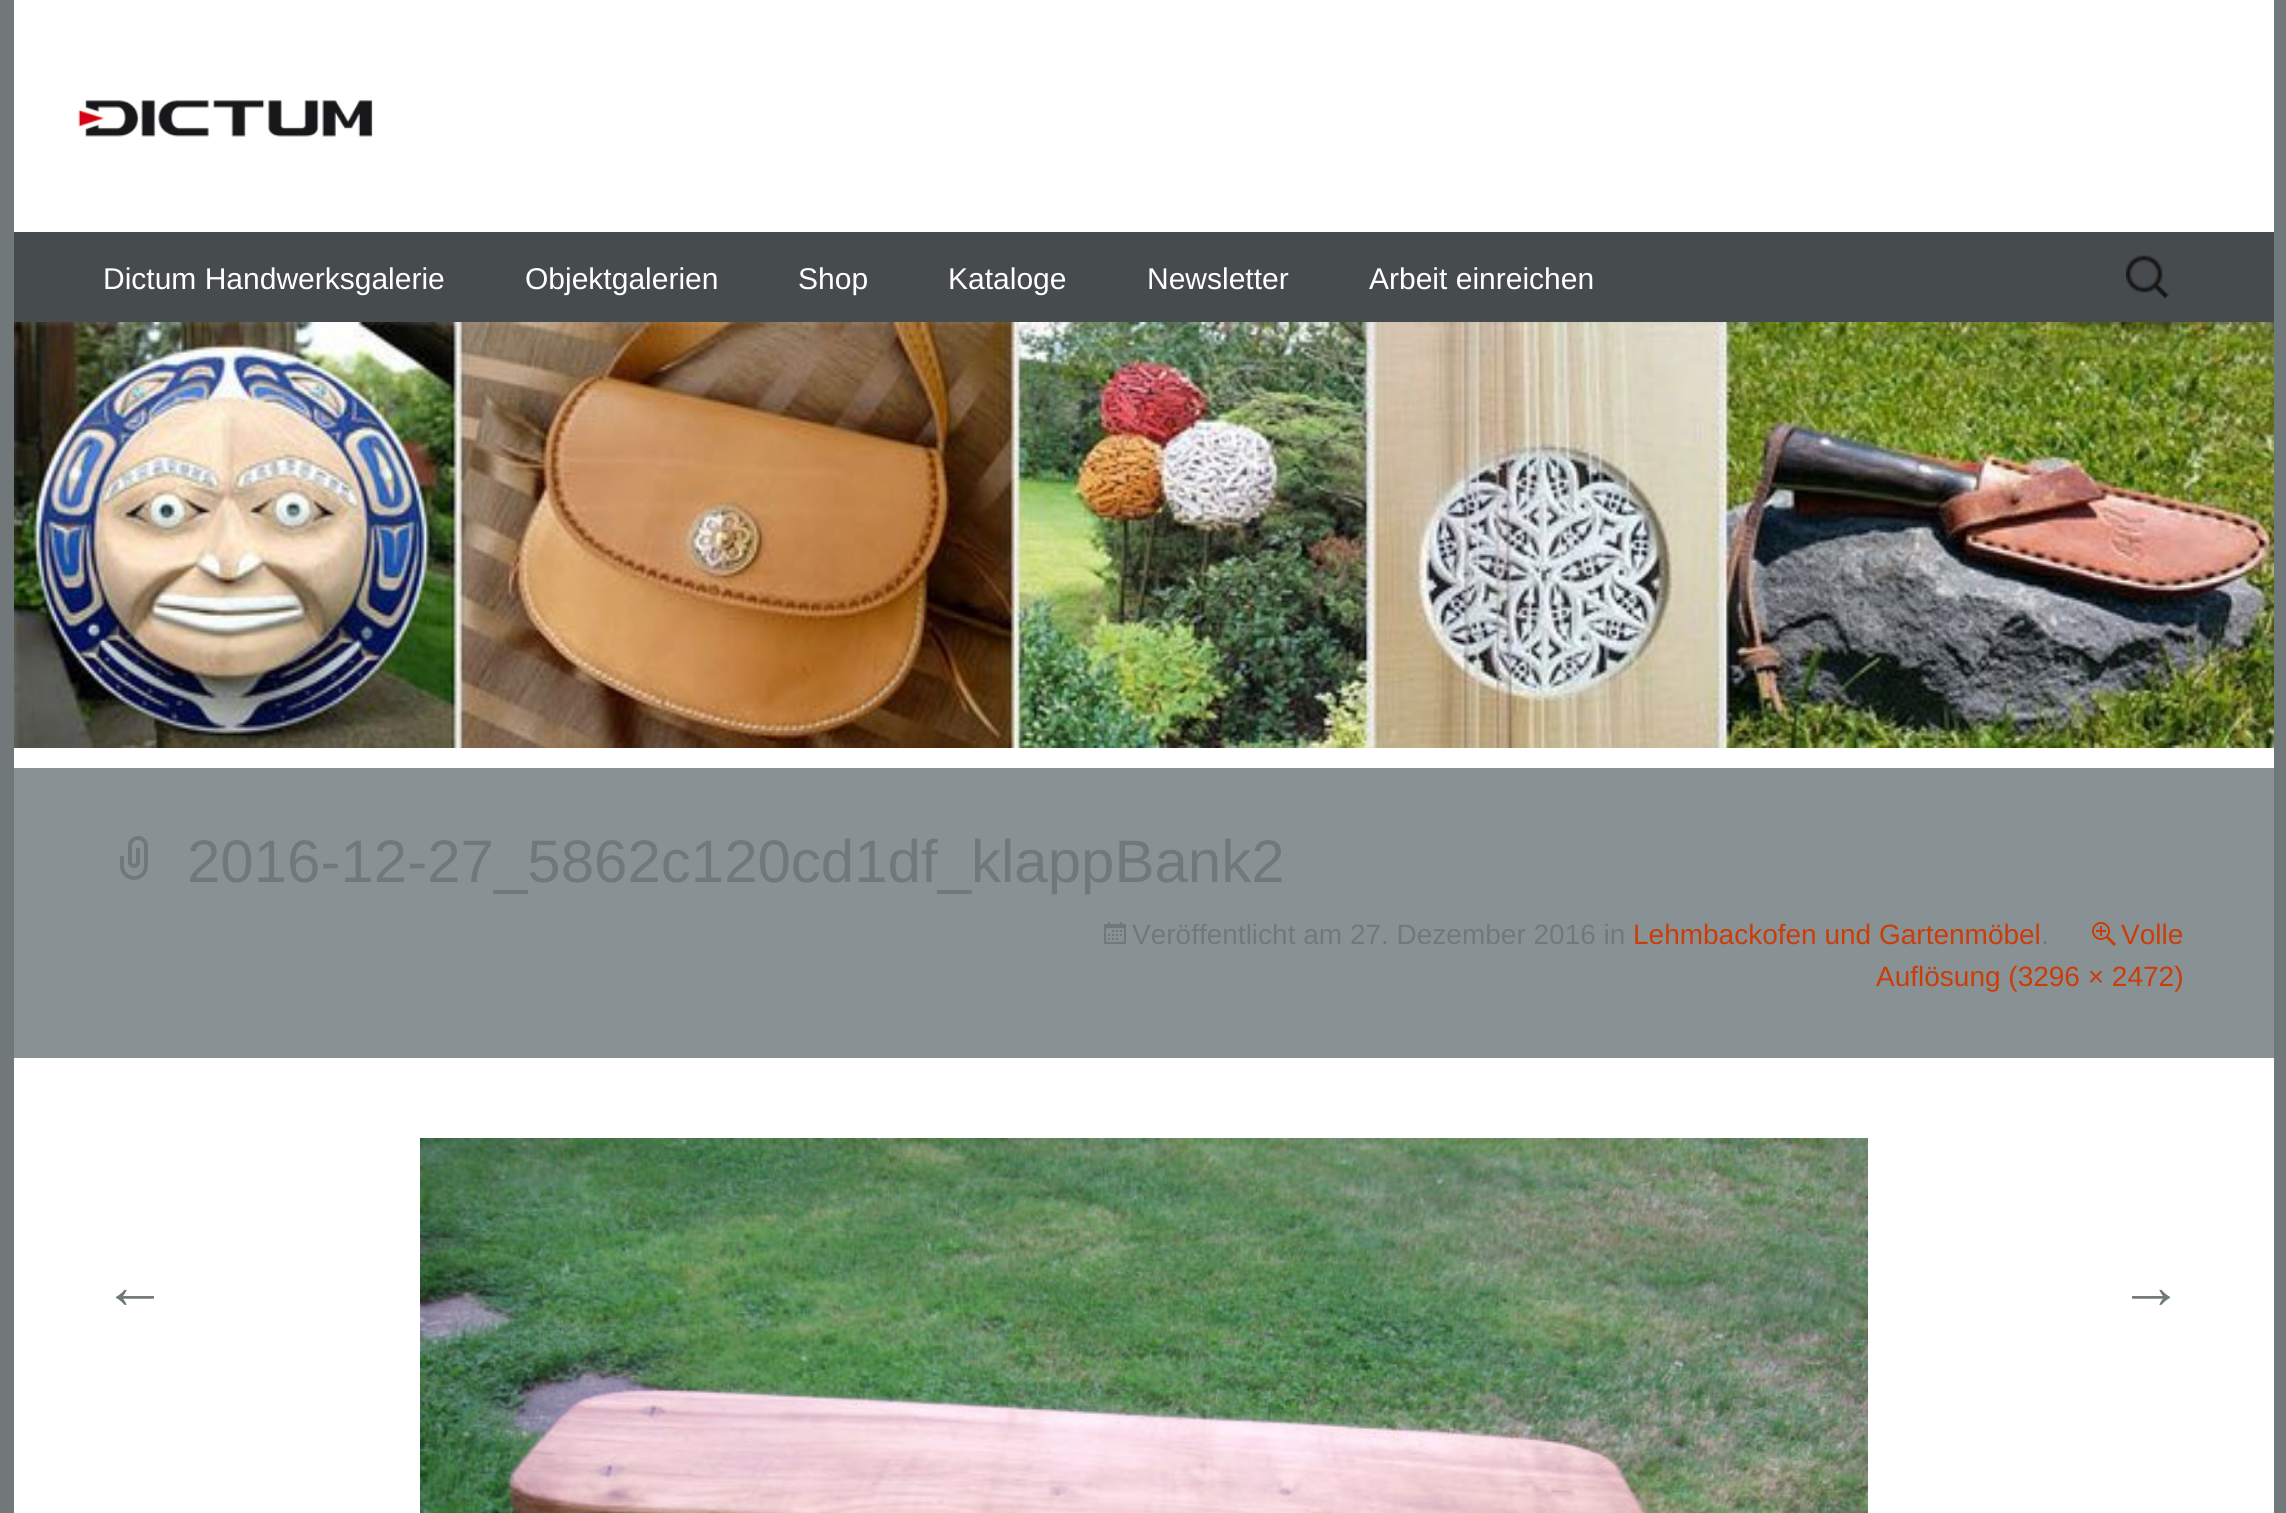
import math
import cairocffi as cairo

surface = cairo.ImageSurface(cairo.FORMAT_RGB24, 2286, 1513)
cr = cairo.Context(surface)
options = cairo.FontOptions()
options.set_hint_metrics(cairo.HINT_METRICS_OFF)
options.set_hint_style(cairo.HINT_STYLE_NONE)
cr.set_font_options(options)
cr.set_miter_limit(4)


def use_color(code):
    cr.set_source_rgb(*(v / 255 for v in bytes.fromhex(code[-6:])))


def picture(path, x, y, w, h):
    cr.save()
    cr.set_source_surface(cairo.ImageSurface.create_from_png(path), x, y)
    cr.rectangle(x, y, w, h)
    cr.fill()
    cr.restore()


use_color("#70787a")
cr.paint()
use_color("#ffffff")
cr.rectangle(14, 0, 2260, 768)
cr.fill()
picture("img1.png", 78, 100, 295, 37)
use_color("#464b4d")
cr.rectangle(14, 232, 2260, 90)
cr.fill()
cr.select_font_face("Liberation Sans")
cr.set_font_size(30)
use_color("#ffffff")
cr.move_to(103, 289)
cr.show_text("Dictum Handwerksgalerie")
cr.move_to(525, 289)
cr.show_text("Objektgalerien")
cr.move_to(798, 289)
cr.show_text("Shop")
cr.move_to(948, 289)
cr.show_text("Kataloge")
cr.move_to(1147, 289)
cr.show_text("Newsletter")
cr.move_to(1369, 289)
cr.show_text("Arbeit einreichen")
picture("img2.png", 2126, 255, 43, 44)
picture("img3.png", 14, 322, 2260, 426)
use_color("#889294")
cr.rectangle(14, 768, 2260, 290)
cr.fill()
picture("img4.png", 120, 836, 28, 44)
cr.set_font_size(60)
use_color("#70787a")
cr.move_to(187, 882)
cr.show_text("2016-12-27_5862c120cd1df_klappBank2")
picture("img5.png", 1104, 922, 22, 22)
cr.set_font_size(28)
cr.move_to(1132, 944)
cr.show_text("Veröffentlicht am 27. Dezember 2016 in")
use_color("#ca3c08")
cr.move_to(1633, 944)
cr.show_text("Lehmbackofen und Gartenmöbel")
use_color("#70787a")
cr.move_to(2041, 944)
cr.show_text(".")
picture("img6.png", 2092, 922, 24, 24)
use_color("#ca3c08")
cr.move_to(2121, 944)
cr.show_text("Volle")
cr.move_to(1876, 986)
cr.show_text("Auflösung (3296 × 2472)")
use_color("#ffffff")
cr.rectangle(14, 1058, 2260, 455)
cr.fill()
picture("img7.png", 420, 1138, 1448, 375)
cr.set_font_size(64)
use_color("#70787a")
cr.move_to(103, 1308)
cr.show_text("←")
cr.move_to(2119, 1308)
cr.show_text("→")
surface.write_to_png("result.png")
